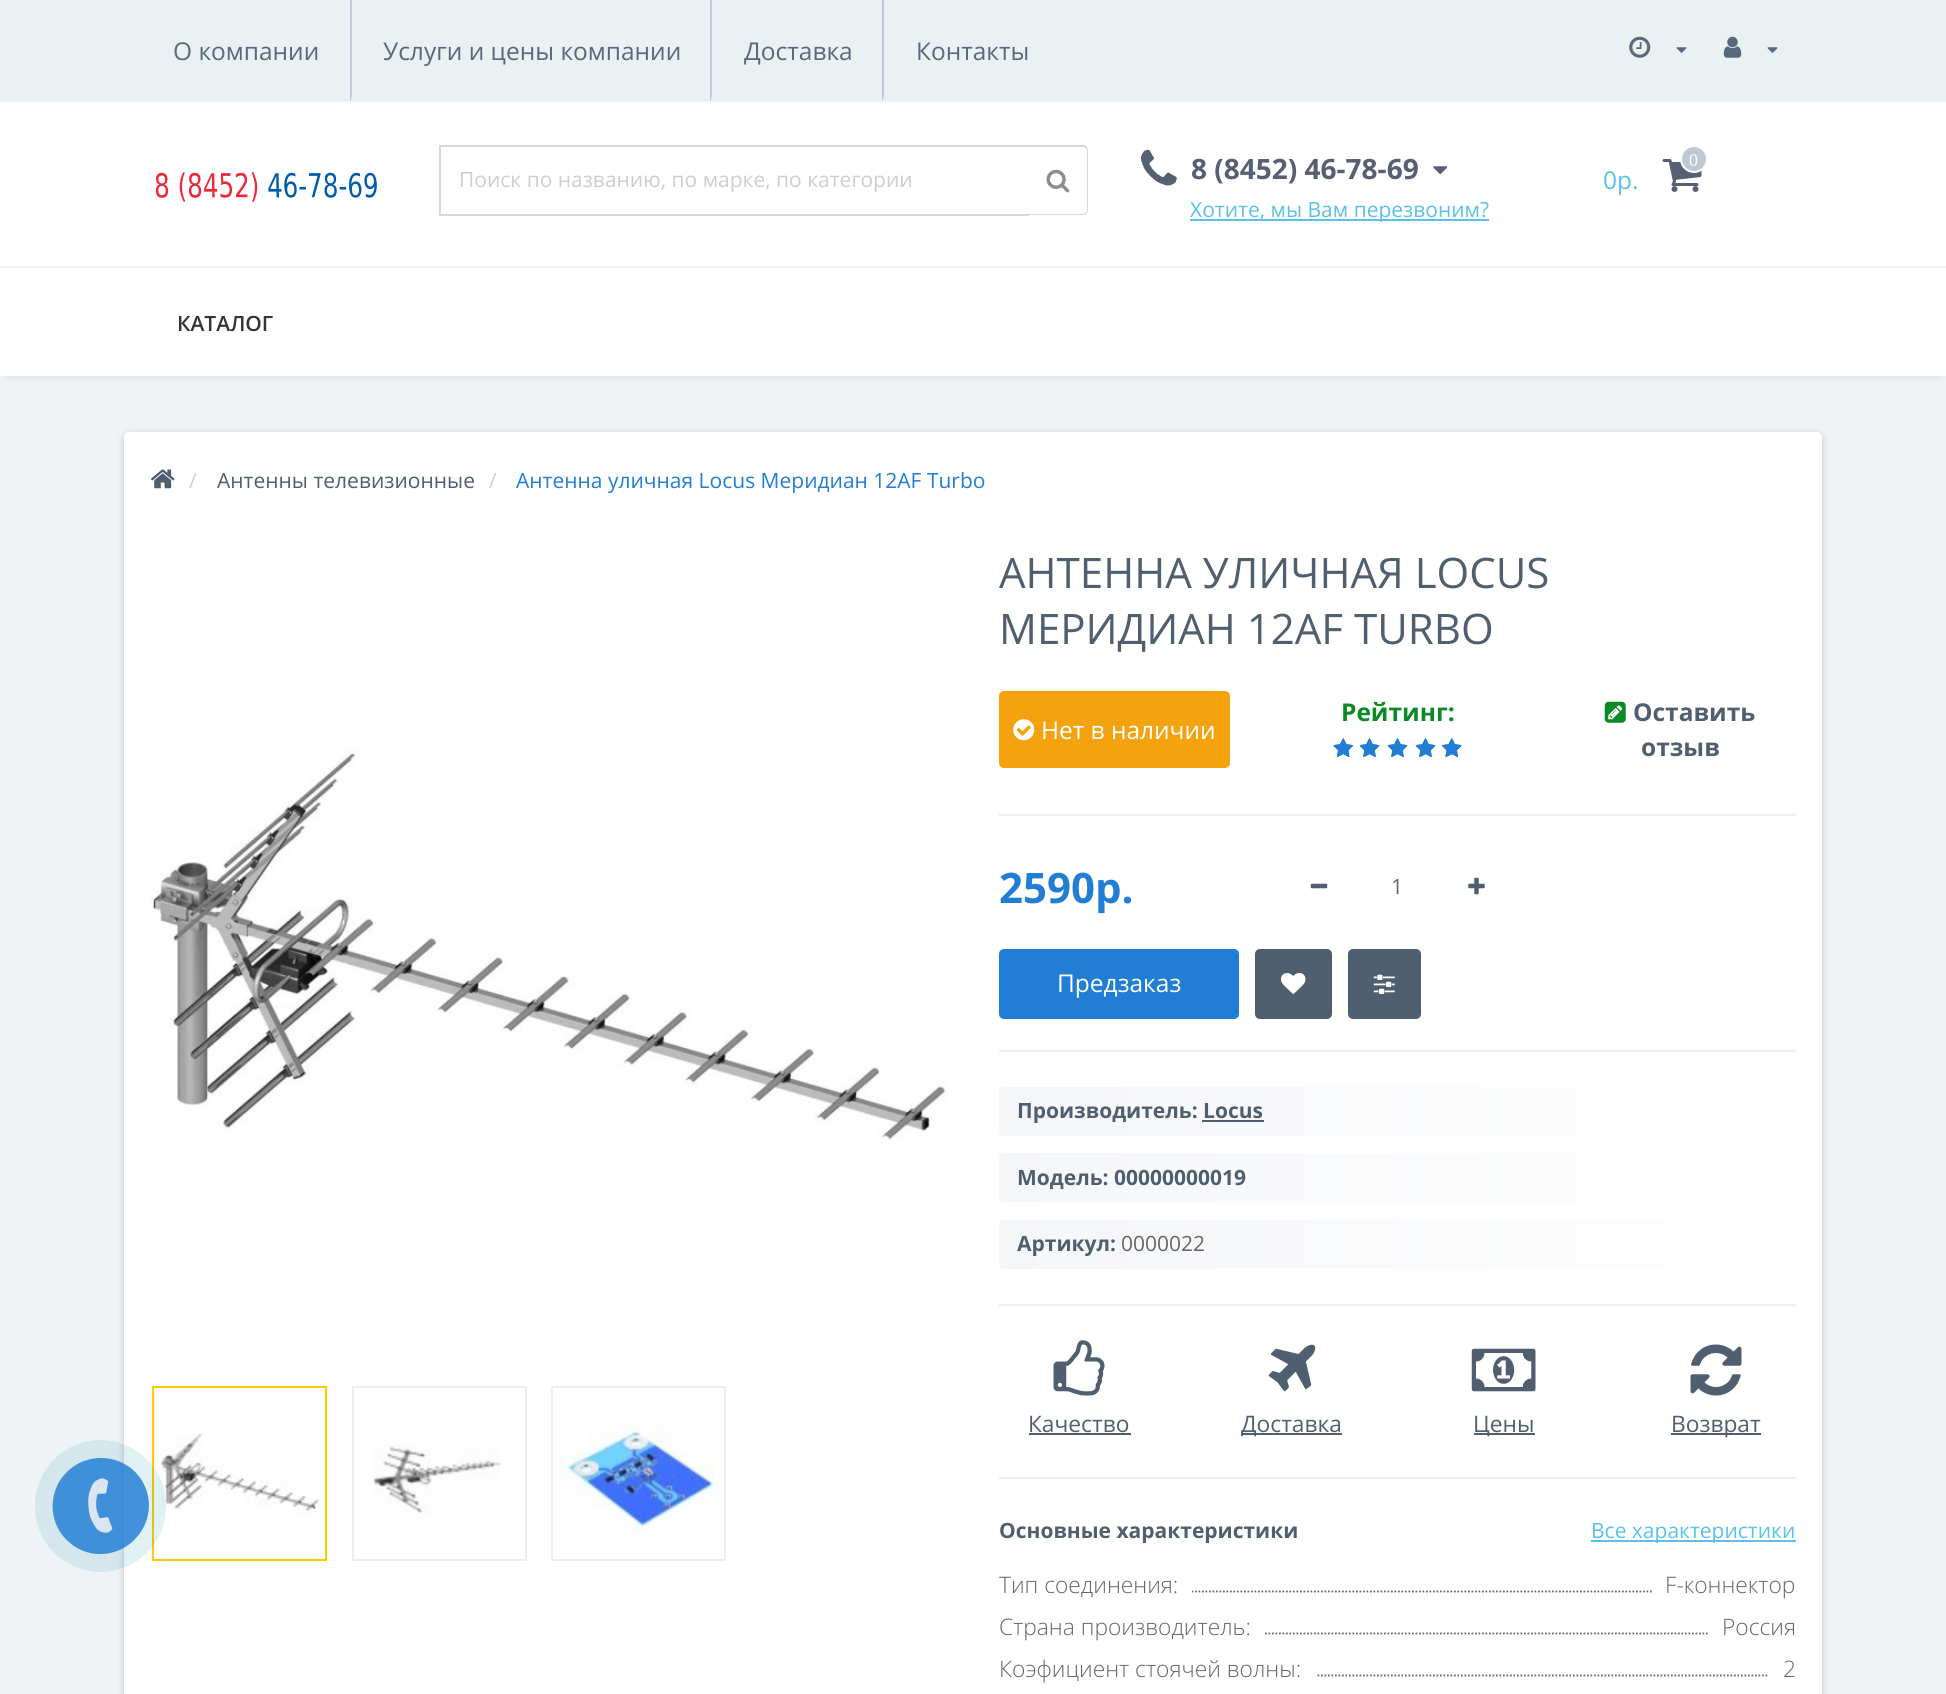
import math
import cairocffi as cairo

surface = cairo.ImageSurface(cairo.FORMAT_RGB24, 1946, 1694)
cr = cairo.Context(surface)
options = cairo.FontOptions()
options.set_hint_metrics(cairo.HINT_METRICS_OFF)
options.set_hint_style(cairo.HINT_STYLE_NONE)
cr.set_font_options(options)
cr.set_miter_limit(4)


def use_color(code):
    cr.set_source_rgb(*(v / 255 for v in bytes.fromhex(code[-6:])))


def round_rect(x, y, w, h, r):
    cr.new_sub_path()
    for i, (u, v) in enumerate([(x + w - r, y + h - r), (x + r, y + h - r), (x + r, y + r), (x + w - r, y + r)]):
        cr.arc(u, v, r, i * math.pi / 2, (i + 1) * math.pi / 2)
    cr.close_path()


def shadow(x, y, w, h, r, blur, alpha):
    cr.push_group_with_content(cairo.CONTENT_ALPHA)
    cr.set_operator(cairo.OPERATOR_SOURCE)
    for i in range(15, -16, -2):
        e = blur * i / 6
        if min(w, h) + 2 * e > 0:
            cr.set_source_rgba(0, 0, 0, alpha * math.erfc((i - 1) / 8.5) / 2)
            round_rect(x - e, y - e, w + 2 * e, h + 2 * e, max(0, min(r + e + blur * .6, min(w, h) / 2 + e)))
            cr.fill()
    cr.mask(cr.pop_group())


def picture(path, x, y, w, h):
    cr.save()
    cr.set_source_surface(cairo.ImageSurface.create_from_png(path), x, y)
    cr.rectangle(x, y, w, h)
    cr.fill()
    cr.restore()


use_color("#f0f3f6")
cr.paint()
use_color("#eaf1f3")
cr.rectangle(0, 0, 1946, 102)
cr.fill()
cr.select_font_face("Open Sans")
cr.set_font_size(24.5)
use_color("#57697a")
cr.move_to(173, 60)
cr.show_text("О компании")
use_color("#c1cbdc")
cr.new_path()
cr.move_to(350, 102)
cr.line_to(350, 0)
cr.line_to(352, 0)
cr.line_to(352, 96)
cr.close_path()
cr.fill()
use_color("#57697a")
cr.move_to(383, 60)
cr.show_text("Услуги и цены компании")
use_color("#c1cbdc")
cr.new_path()
cr.move_to(710, 102)
cr.line_to(710, 0)
cr.line_to(712, 0)
cr.line_to(712, 96)
cr.close_path()
cr.fill()
use_color("#57697a")
cr.move_to(744, 60)
cr.show_text("Доставка")
use_color("#c1cbdc")
cr.new_path()
cr.move_to(882, 102)
cr.line_to(882, 0)
cr.line_to(884, 0)
cr.line_to(884, 96)
cr.close_path()
cr.fill()
use_color("#57697a")
cr.move_to(916, 60)
cr.show_text("Контакты")
picture("img1.png", 1629, 36, 22, 22)
picture("img2.png", 1676, 47, 11, 6)
picture("img3.png", 1723, 36, 19, 22)
picture("img2.png", 1767, 47, 11, 6)
use_color("#ffffff")
cr.rectangle(0, 102, 1946, 164)
cr.fill()
picture("img4.png", 155, 172, 222, 30)
use_color("#d5d9dd")
cr.rectangle(439, 145, 590, 2)
cr.fill()
cr.rectangle(439, 214, 590, 2)
cr.fill()
cr.rectangle(439, 145, 2, 70)
cr.fill()
cr.set_font_size(21)
use_color("#cecece")
cr.move_to(459, 187)
cr.show_text("Поиск по названию, по марке, по категории")
use_color("#d5d9dd")
cr.set_fill_rule(cairo.FILL_RULE_EVEN_ODD)
cr.new_path()
cr.move_to(1029, 145)
cr.line_to(1083, 145)
cr.curve_to(1086, 145, 1088, 148, 1088, 150)
cr.line_to(1088, 210)
cr.curve_to(1088, 213, 1086, 215, 1083, 215)
cr.line_to(1029, 215)
cr.close_path()
cr.move_to(1029, 147)
cr.line_to(1083, 147)
cr.curve_to(1085, 147, 1087, 149, 1087, 150)
cr.line_to(1087, 210)
cr.curve_to(1087, 212, 1085, 214, 1083, 214)
cr.line_to(1029, 214)
cr.close_path()
cr.fill()
picture("img5.png", 1046, 169, 24, 24)
picture("img6.png", 1141, 149, 36, 37)
cr.select_font_face("Open Sans", cairo.FONT_SLANT_NORMAL, cairo.FONT_WEIGHT_BOLD)
cr.set_font_size(28)
use_color("#566072")
cr.move_to(1191, 179)
cr.show_text("8 (8452) 46-78-69")
picture("img7.png", 1433, 166, 15, 9)
use_color("#59c2e6")
cr.rectangle(1190, 219, 299, 2)
cr.fill()
cr.select_font_face("Open Sans")
cr.set_font_size(21)
cr.move_to(1190, 217)
cr.show_text("Хотите, мы Вам перезвоним?")
picture("img8.png", 1662, 159, 40, 33)
use_color("#bdc9d4")
cr.arc(1694, 159, 13, 0, 2 * math.pi)
cr.fill_preserve()
use_color("#ffffff")
cr.stroke()
cr.select_font_face("Liberation Serif")
cr.set_font_size(18)
cr.move_to(1689, 166)
cr.show_text("0")
cr.select_font_face("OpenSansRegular")
cr.set_font_size(24.5)
use_color("#59c2e6")
cr.move_to(1603, 189)
cr.show_text("0р.")
use_color("#000000")
shadow(7, 280, 1932, 96, 0, 5, 0.12)
use_color("#ffffff")
cr.rectangle(0, 268, 1946, 108)
cr.fill()
use_color("#edf1f6")
cr.rectangle(0, 266, 1946, 2)
cr.fill()
cr.select_font_face("Open Sans SemiBold")
cr.set_font_size(21)
use_color("#333333")
cr.move_to(177, 331)
cr.show_text("КАТАЛОГ")
use_color("#000000")
shadow(124, 434, 1698, 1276, 5, 3.5, 0.2)
use_color("#ffffff")
round_rect(124, 432, 1698, 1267, 5)
cr.fill()
cr.rectangle(153, 1387, 173, 173)
use_color("#ffca00")
cr.stroke()
picture("img12.png", 161, 1433, 158, 84)
round_rect(44, 1449, 113, 114, 56.5)
cr.set_source_rgba(0.082, 0.588, 0.686, 0.13)
cr.set_line_width(18)
cr.stroke()
cr.set_source_rgba(0.133, 0.494, 0.831, 0.85)
cr.set_fill_rule(cairo.FILL_RULE_WINDING)
cr.new_path()
cr.move_to(132, 1469)
cr.curve_to(152, 1486, 155, 1516, 137, 1537)
cr.curve_to(120, 1557, 90, 1560, 70, 1543)
cr.curve_to(49, 1526, 47, 1495, 64, 1475)
cr.curve_to(81, 1455, 111, 1452, 132, 1469)
cr.close_path()
cr.fill()
picture("img9.png", 88, 1478, 25, 55)
picture("img10.png", 151, 469, 24, 20)
cr.select_font_face("Open Sans")
use_color("#cecece")
cr.move_to(189, 488)
cr.show_text("/")
use_color("#4f5f6f")
cr.move_to(217, 488)
cr.show_text("Антенны телевизионные")
use_color("#cecece")
cr.move_to(489, 488)
cr.show_text("/")
use_color("#227ed4")
cr.move_to(516, 488)
cr.show_text("Антенна уличная Locus Мeридиан 12AF Turbo")
picture("img11.png", 151, 750, 796, 391)
cr.rectangle(353, 1387, 173, 173)
use_color("#eeeeee")
cr.set_line_width(2)
cr.stroke()
picture("img13.png", 373, 1444, 128, 75)
cr.rectangle(552, 1387, 173, 173)
cr.stroke()
picture("img14.png", 560, 1422, 158, 113)
cr.select_font_face("OpenSansRegular")
cr.set_font_size(42)
use_color("#4f5f6f")
cr.move_to(999, 588)
cr.show_text("АНТЕННА УЛИЧНАЯ LOCUS")
cr.move_to(999, 644)
cr.show_text("МEРИДИАН 12AF TURBO")
use_color("#f4a30e")
round_rect(999, 691, 231, 77, 5)
cr.fill()
picture("img15.png", 1013, 719, 22, 22)
cr.set_font_size(24.5)
use_color("#ffffff")
cr.move_to(1041, 739)
cr.show_text("Нет в наличии")
cr.select_font_face("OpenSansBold", cairo.FONT_SLANT_NORMAL, cairo.FONT_WEIGHT_BOLD)
use_color("#098a24")
cr.move_to(1341, 721)
cr.show_text("Рейтинг:")
picture("img16.png", 1333, 738, 20, 19)
picture("img17.png", 1333, 738, 20, 19)
picture("img18.png", 1359, 738, 21, 19)
picture("img19.png", 1359, 738, 21, 19)
picture("img18.png", 1387, 738, 21, 19)
picture("img19.png", 1387, 738, 21, 19)
picture("img18.png", 1415, 738, 21, 19)
picture("img19.png", 1415, 738, 21, 19)
picture("img20.png", 1442, 738, 20, 19)
picture("img21.png", 1442, 738, 20, 19)
picture("img22.png", 1604, 701, 22, 22)
use_color("#4f5f6f")
cr.move_to(1633, 721)
cr.show_text("Оставить")
cr.move_to(1641, 756)
cr.show_text("отзыв")
use_color("#eeeeee")
cr.rectangle(999, 814, 797, 2)
cr.fill()
cr.set_font_size(42)
use_color("#227ed4")
cr.move_to(999, 903)
cr.show_text("2590р.")
picture("img23.png", 1310, 883, 18, 6)
cr.select_font_face("Open Sans")
cr.set_font_size(21)
use_color("#666666")
cr.move_to(1391, 894)
cr.show_text("1")
picture("img24.png", 1468, 877, 17, 18)
use_color("#227ed4")
round_rect(999, 949, 240, 70, 5)
cr.fill()
cr.set_font_size(24.5)
use_color("#ffffff")
cr.move_to(1057, 992)
cr.show_text("Предзаказ")
use_color("#4f5f6f")
round_rect(1255, 949, 77, 70, 5)
cr.fill()
picture("img25.png", 1281, 973, 25, 21)
round_rect(1348, 949, 73, 70, 5)
cr.fill()
picture("img26.png", 1373, 974, 22, 20)
use_color("#eeeeee")
cr.rectangle(999, 1050, 797, 2)
cr.fill()
gradient = cairo.LinearGradient(999, 1111, 1796, 1111)
gradient.add_color_stop_rgba(0, 0.961, 0.965, 0.973, 1)
gradient.add_color_stop_rgba(1, 1, 1, 1, 1)
cr.set_source(gradient)
round_rect(999, 1087, 797, 49, 5)
cr.fill()
cr.select_font_face("OpenSansBold", cairo.FONT_SLANT_NORMAL, cairo.FONT_WEIGHT_BOLD)
cr.set_font_size(21)
use_color("#4f5f6f")
cr.move_to(1017, 1118)
cr.show_text("Производитель: Locus")
cr.rectangle(1202, 1120, 62, 2)
cr.fill()
gradient = cairo.LinearGradient(999, 1178, 1796, 1178)
gradient.add_color_stop_rgba(0, 0.961, 0.965, 0.973, 1)
gradient.add_color_stop_rgba(1, 1, 1, 1, 1)
cr.set_source(gradient)
round_rect(999, 1153, 797, 49, 5)
cr.fill()
use_color("#4f5f6f")
cr.move_to(1017, 1185)
cr.show_text("Модель: 00000000019")
gradient = cairo.LinearGradient(999, 1244, 1796, 1244)
gradient.add_color_stop_rgba(0, 0.961, 0.965, 0.973, 1)
gradient.add_color_stop_rgba(1, 1, 1, 1, 1)
cr.set_source(gradient)
round_rect(999, 1220, 797, 49, 5)
cr.fill()
use_color("#4f5f6f")
cr.move_to(1017, 1251)
cr.show_text("Артикул:")
cr.select_font_face("Open Sans")
use_color("#666666")
cr.move_to(1121, 1251)
cr.show_text("0000022")
use_color("#eeeeee")
cr.rectangle(999, 1304, 797, 2)
cr.fill()
picture("img27.png", 1053, 1340, 52, 56)
cr.set_font_size(22.75)
use_color("#4f5f6f")
cr.move_to(1028, 1432)
cr.show_text("Качество")
cr.rectangle(1029, 1433, 102, 2)
cr.fill()
picture("img28.png", 1268, 1344, 48, 48)
cr.rectangle(1241, 1433, 101, 2)
cr.fill()
cr.move_to(1241, 1432)
cr.show_text("Доставка")
picture("img29.png", 1471, 1348, 65, 44)
cr.rectangle(1474, 1433, 61, 2)
cr.fill()
cr.move_to(1473, 1432)
cr.show_text("Цены")
picture("img30.png", 1690, 1344, 52, 52)
cr.rectangle(1671, 1433, 90, 2)
cr.fill()
cr.move_to(1671, 1432)
cr.show_text("Возврат")
use_color("#eeeeee")
cr.rectangle(999, 1477, 797, 2)
cr.fill()
cr.select_font_face("OpenSansBold", cairo.FONT_SLANT_NORMAL, cairo.FONT_WEIGHT_BOLD)
cr.set_font_size(21)
use_color("#4f5f6f")
cr.move_to(999, 1538)
cr.show_text("Основные характеристики")
use_color("#59c2e6")
cr.rectangle(1591, 1540, 205, 2)
cr.fill()
cr.select_font_face("Open Sans")
cr.move_to(1591, 1538)
cr.show_text("Все характеристики")
cr.new_path()
cr.move_to(999, 1591.5)
cr.line_to(1795.5, 1591.5)
use_color("#666666")
cr.set_line_width(1.8)
cr.set_dash([1.75, 1.75])
cr.stroke()
use_color("#ffffff")
cr.rectangle(999, 1590, 193, 3)
cr.fill()
cr.select_font_face("Open Sans Light")
cr.set_font_size(22.75)
use_color("#666666")
cr.move_to(999, 1593)
cr.show_text("Тип соединения:")
use_color("#ffffff")
cr.rectangle(1653, 1590, 143, 3)
cr.fill()
use_color("#666666")
cr.move_to(1665, 1593)
cr.show_text("F-коннектор")
cr.new_path()
cr.move_to(999, 1633.5)
cr.line_to(1795.5, 1633.5)
cr.stroke()
use_color("#ffffff")
cr.rectangle(999, 1632, 265, 3)
cr.fill()
use_color("#666666")
cr.move_to(999, 1635)
cr.show_text("Страна производитель:")
use_color("#ffffff")
cr.rectangle(1709, 1632, 87, 3)
cr.fill()
use_color("#666666")
cr.move_to(1722, 1635)
cr.show_text("Россия")
cr.new_path()
cr.move_to(999, 1675.5)
cr.line_to(1795.5, 1675.5)
cr.stroke()
use_color("#ffffff")
cr.rectangle(999, 1674, 317, 3)
cr.fill()
use_color("#666666")
cr.move_to(999, 1677)
cr.show_text("Коэфициент стоячей волны:")
use_color("#ffffff")
cr.rectangle(1769, 1674, 27, 3)
cr.fill()
use_color("#666666")
cr.move_to(1783, 1677)
cr.show_text("2")
surface.write_to_png("result.png")
